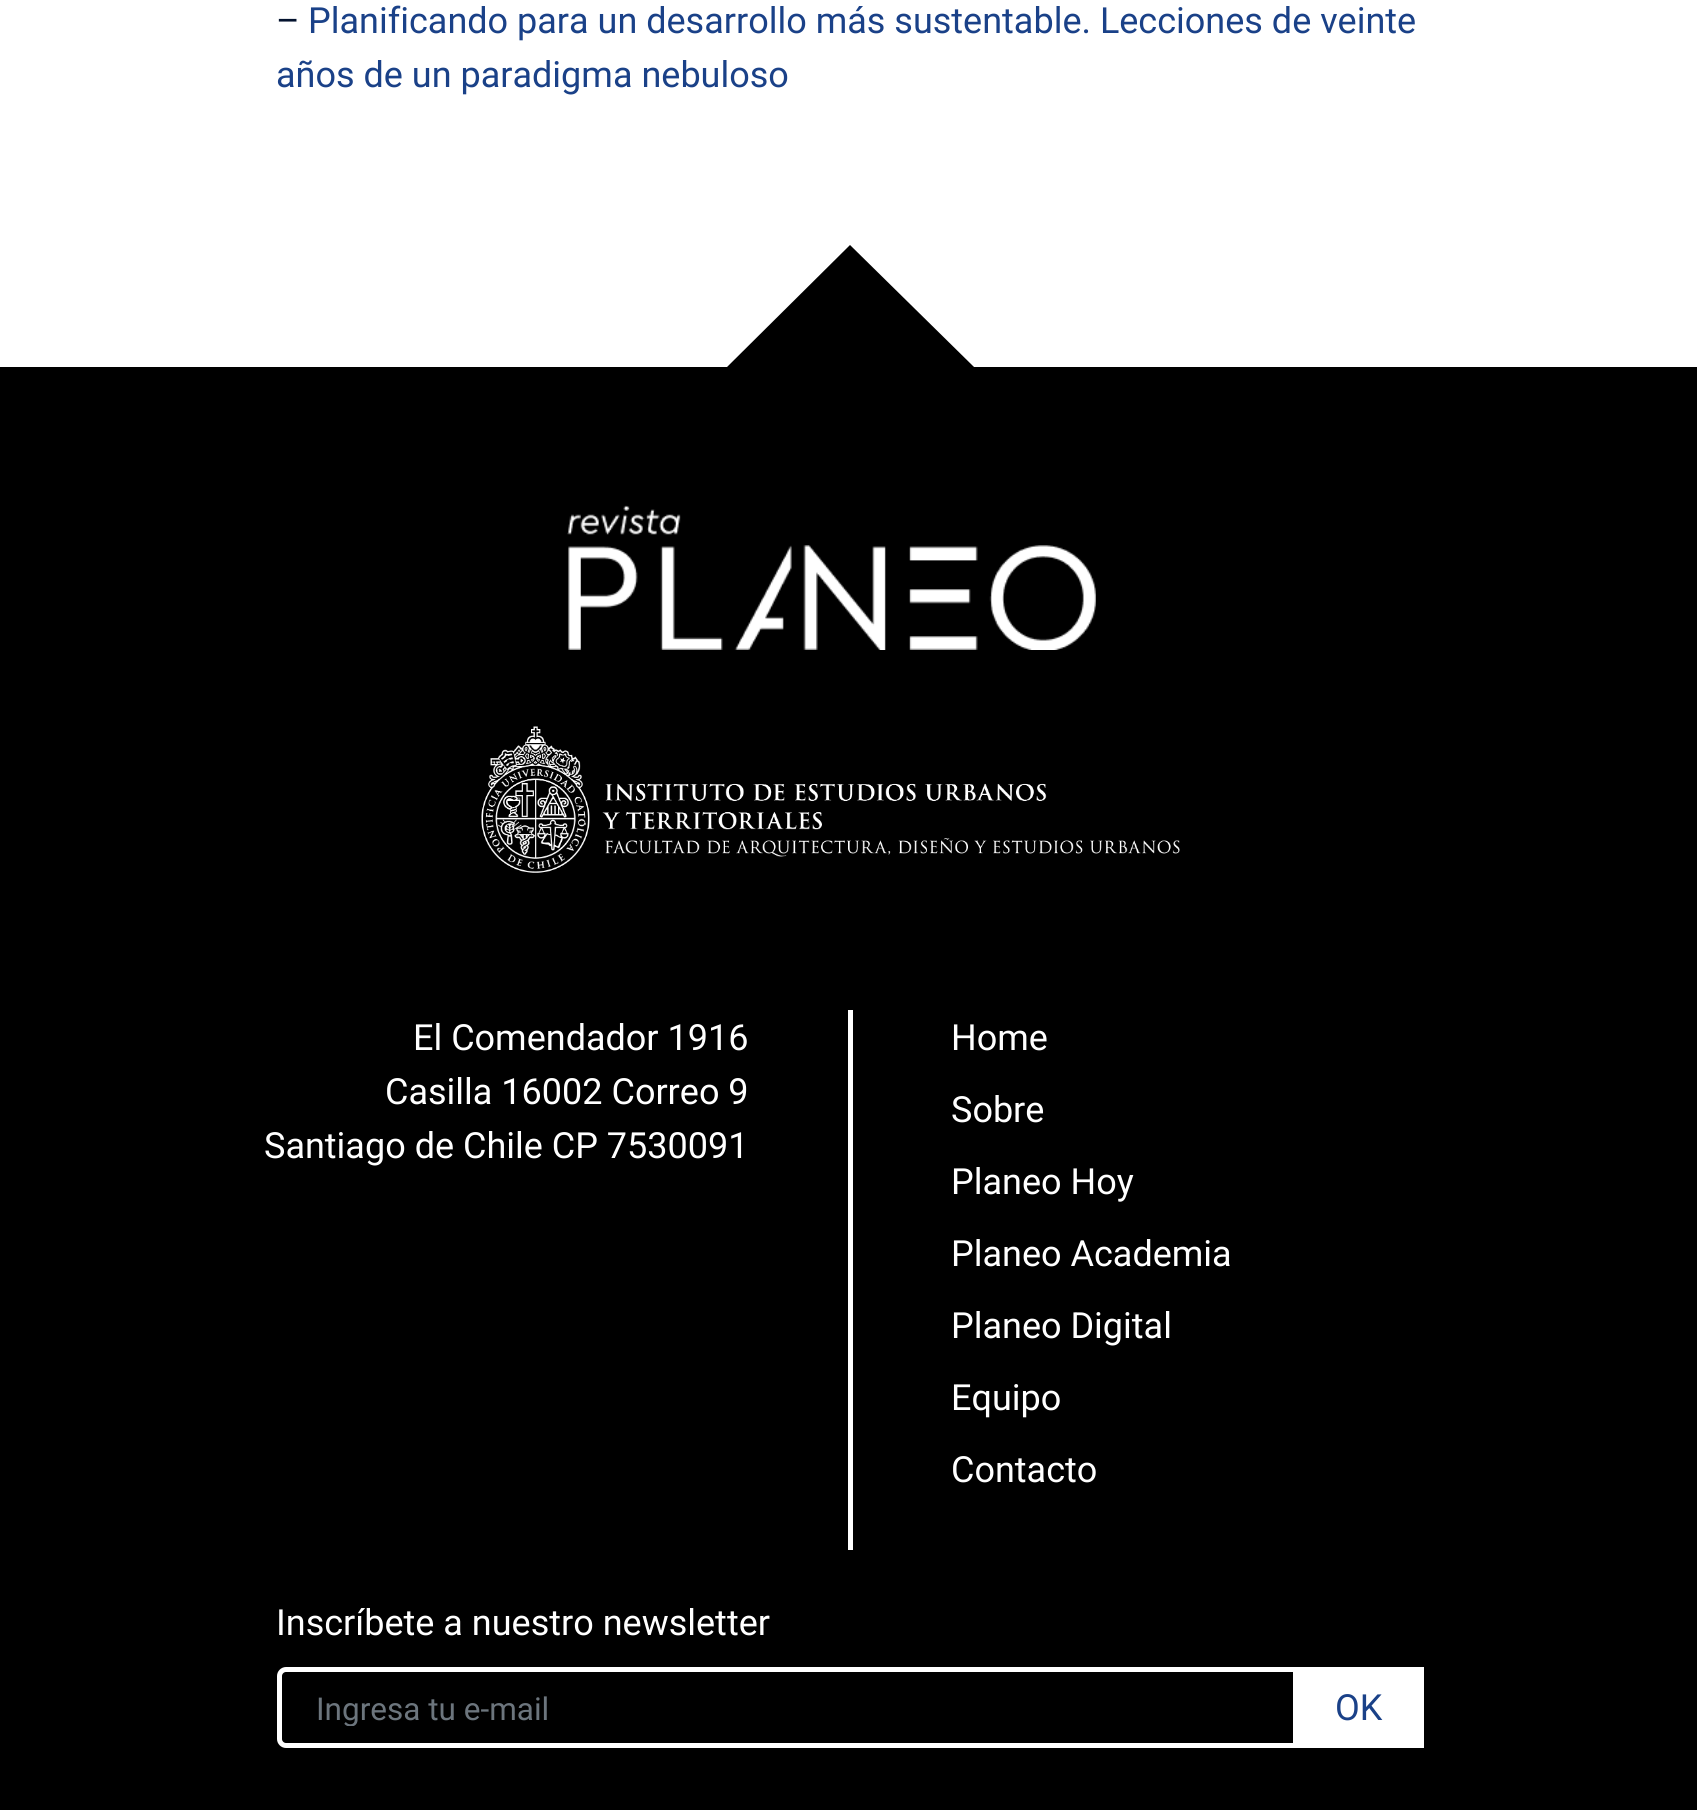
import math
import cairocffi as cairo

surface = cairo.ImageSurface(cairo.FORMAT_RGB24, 1697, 1810)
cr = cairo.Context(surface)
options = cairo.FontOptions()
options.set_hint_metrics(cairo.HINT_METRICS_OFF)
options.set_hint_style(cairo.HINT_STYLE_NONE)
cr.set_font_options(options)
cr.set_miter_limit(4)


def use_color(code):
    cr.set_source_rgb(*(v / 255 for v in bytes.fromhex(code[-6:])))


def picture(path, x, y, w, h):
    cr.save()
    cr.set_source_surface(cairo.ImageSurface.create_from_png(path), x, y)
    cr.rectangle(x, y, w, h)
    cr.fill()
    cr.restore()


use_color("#ffffff")
cr.paint()
cr.select_font_face("Roboto")
cr.set_font_size(36)
use_color("#03122e")
cr.move_to(276, 33)
cr.show_text("–")
use_color("#1a4188")
cr.move_to(308, 33)
cr.show_text("Planificando para un desarrollo más sustentable. Lecciones de veinte")
cr.move_to(276, 87)
cr.show_text("años de un paradigma nebuloso")
use_color("#000000")
cr.rectangle(0, 367, 1697, 1443)
cr.fill()
cr.new_path()
cr.move_to(974, 367)
cr.line_to(727, 367)
cr.line_to(850, 245)
cr.close_path()
cr.fill()
picture("img1.png", 567, 505, 529, 145)
picture("img2.png", 481, 726, 699, 147)
use_color("#ffffff")
cr.move_to(413, 1050)
cr.show_text("El Comendador 1916")
cr.move_to(385, 1104)
cr.show_text("Casilla 16002 Correo 9")
cr.move_to(264, 1158)
cr.show_text("Santiago de Chile CP 7530091")
cr.rectangle(848, 1010, 5, 540)
cr.fill()
cr.move_to(951, 1050)
cr.show_text("Home")
cr.move_to(951, 1122)
cr.show_text("Sobre")
cr.move_to(951, 1194)
cr.show_text("Planeo Hoy")
cr.move_to(951, 1266)
cr.show_text("Planeo Academia")
cr.move_to(951, 1338)
cr.show_text("Planeo Digital")
cr.move_to(951, 1410)
cr.show_text("Equipo")
cr.move_to(951, 1482)
cr.show_text("Contacto")
cr.move_to(276, 1635)
cr.show_text("Inscríbete a nuestro newsletter")
cr.new_path()
cr.move_to(286, 1669.5)
cr.line_to(1295.5, 1669.5)
cr.line_to(1295.5, 1745.5)
cr.line_to(286, 1745.5)
cr.curve_to(282.5, 1745.5, 279.5, 1742.5, 279.5, 1739)
cr.line_to(279.5, 1676)
cr.curve_to(279.5, 1672.5, 282.5, 1669.5, 286, 1669.5)
cr.close_path()
cr.set_line_width(5)
cr.stroke()
cr.save()
cr.rectangle(317, 1690, 941, 36)
cr.clip()
cr.set_font_size(31.5)
use_color("#6c757d")
cr.move_to(316, 1720)
cr.show_text("Ingresa tu e-mail")
cr.restore()
cr.rectangle(1298, 1667, 126, 81)
cr.fill()
use_color("#1a4188")
cr.move_to(1335, 1720)
cr.show_text("OK")
surface.write_to_png("result.png")
